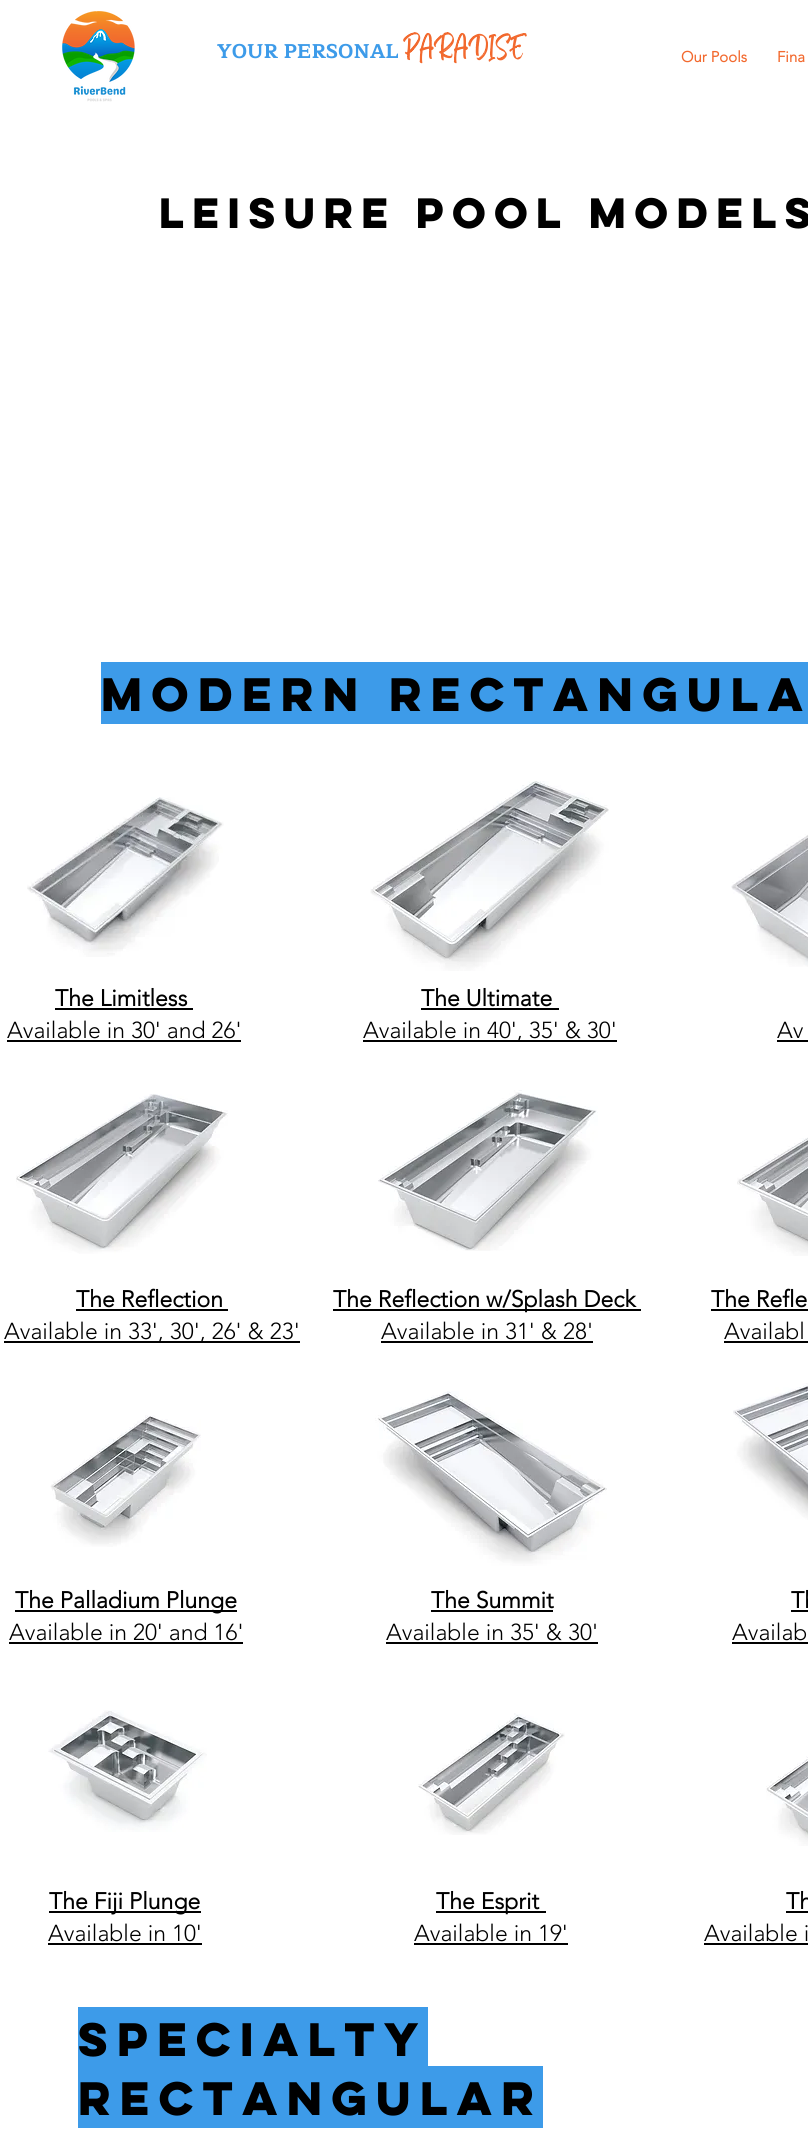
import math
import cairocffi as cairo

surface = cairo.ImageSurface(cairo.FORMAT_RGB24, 808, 2132)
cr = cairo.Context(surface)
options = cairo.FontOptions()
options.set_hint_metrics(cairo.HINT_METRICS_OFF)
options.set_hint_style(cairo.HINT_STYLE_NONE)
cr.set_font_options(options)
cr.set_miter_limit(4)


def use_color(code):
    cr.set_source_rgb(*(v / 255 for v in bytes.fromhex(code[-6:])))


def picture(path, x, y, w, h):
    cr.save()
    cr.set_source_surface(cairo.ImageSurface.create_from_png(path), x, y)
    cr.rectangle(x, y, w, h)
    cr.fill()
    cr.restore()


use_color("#ffffff")
cr.paint()
picture("img1.png", 62, 11, 73, 91)
cr.select_font_face("Maitree", cairo.FONT_SLANT_NORMAL, cairo.FONT_WEIGHT_BOLD)
cr.set_font_size(20)
use_color("#3d9be9")
cr.move_to(217, 58)
cr.show_text("YOUR PERSONAL")
cr.select_font_face("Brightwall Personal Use", cairo.FONT_SLANT_NORMAL, cairo.FONT_WEIGHT_BOLD)
cr.set_font_size(17)
use_color("#f2692e")
cr.move_to(403, 58)
cr.show_text("PARADISE")
cr.select_font_face("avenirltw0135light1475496", cairo.FONT_SLANT_NORMAL, cairo.FONT_WEIGHT_BOLD)
cr.set_font_size(15)
cr.move_to(681, 62)
cr.show_text("Our Pools")
cr.move_to(777, 62)
cr.show_text("Fina")
cr.select_font_face("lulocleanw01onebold", cairo.FONT_SLANT_NORMAL, cairo.FONT_WEIGHT_BOLD)
cr.set_font_size(38)
use_color("#000000")
cr.move_to(159, 228)
cr.show_text("Leisure Pool Models")
use_color("#3d9be9")
cr.rectangle(101, 662, 707, 62)
cr.fill()
cr.set_font_size(42)
use_color("#000000")
cr.move_to(101, 711)
cr.show_text("modern rectangula")
picture("img2.png", 27, 797, 197, 160)
picture("img3.png", 370, 781, 239, 190)
picture("img4.png", 731, 834, 77, 133)
cr.select_font_face("avenirltw0135light1475496", cairo.FONT_SLANT_NORMAL, cairo.FONT_WEIGHT_BOLD)
cr.set_font_size(23)
cr.move_to(55, 1006)
cr.show_text("The Limitless")
cr.rectangle(55, 1008, 138, 2)
cr.fill()
cr.select_font_face("avenirltw0135light1475496 Light")
cr.move_to(7, 1038)
cr.show_text("Available in 30' and 26'")
cr.rectangle(7, 1040, 234, 2)
cr.fill()
cr.select_font_face("avenirltw0135light1475496", cairo.FONT_SLANT_NORMAL, cairo.FONT_WEIGHT_BOLD)
cr.move_to(421, 1006)
cr.show_text("The Ultimate")
cr.rectangle(421, 1008, 138, 2)
cr.fill()
cr.rectangle(363, 1040, 254, 2)
cr.fill()
cr.select_font_face("avenirltw0135light1475496 Light")
cr.move_to(363, 1038)
cr.show_text("Available in 40', 35' & 30'")
cr.move_to(777, 1038)
cr.show_text("Av")
cr.rectangle(777, 1040, 31, 2)
cr.fill()
picture("img5.png", 16, 1094, 212, 160)
picture("img6.png", 378, 1090, 220, 161)
picture("img7.png", 737, 1137, 71, 119)
cr.select_font_face("avenirltw0135light1475496", cairo.FONT_SLANT_NORMAL, cairo.FONT_WEIGHT_BOLD)
cr.move_to(76, 1307)
cr.show_text("The Reflection")
cr.rectangle(76, 1309, 152, 2)
cr.fill()
cr.rectangle(4, 1341, 296, 2)
cr.fill()
cr.select_font_face("avenirltw0135light1475496 Light")
cr.move_to(4, 1339)
cr.show_text("Available in 33', 30', 26' & 23'")
cr.rectangle(333, 1309, 302, 2)
cr.fill()
cr.select_font_face("avenirltw0135light1475496", cairo.FONT_SLANT_NORMAL, cairo.FONT_WEIGHT_BOLD)
cr.move_to(333, 1307)
cr.show_text("The Reflection w/Splash Deck")
cr.rectangle(635, 1309, 6, 2)
cr.fill()
cr.select_font_face("avenirltw0135light1475496 Light")
cr.move_to(381, 1339)
cr.show_text("Available in 31' & 28'")
cr.rectangle(381, 1341, 212, 2)
cr.fill()
cr.select_font_face("avenirltw0135light1475496", cairo.FONT_SLANT_NORMAL, cairo.FONT_WEIGHT_BOLD)
cr.move_to(711, 1307)
cr.show_text("The Refle")
cr.rectangle(711, 1309, 97, 2)
cr.fill()
cr.select_font_face("avenirltw0135light1475496 Light")
cr.move_to(724, 1339)
cr.show_text("Availabl")
cr.rectangle(724, 1341, 84, 2)
cr.fill()
picture("img8.png", 50, 1415, 151, 132)
picture("img9.png", 375, 1391, 232, 175)
picture("img10.png", 733, 1383, 75, 137)
cr.rectangle(15, 1610, 222, 2)
cr.fill()
cr.select_font_face("avenirltw0135light1475496", cairo.FONT_SLANT_NORMAL, cairo.FONT_WEIGHT_BOLD)
cr.move_to(15, 1608)
cr.show_text("The Palladium Plunge")
cr.select_font_face("avenirltw0135light1475496 Light")
cr.move_to(9, 1640)
cr.show_text("Available in 20' and 16'")
cr.rectangle(9, 1642, 234, 2)
cr.fill()
cr.select_font_face("avenirltw0135light1475496", cairo.FONT_SLANT_NORMAL, cairo.FONT_WEIGHT_BOLD)
cr.move_to(431, 1608)
cr.show_text("The Summit")
cr.rectangle(431, 1610, 122, 2)
cr.fill()
cr.select_font_face("avenirltw0135light1475496 Light")
cr.move_to(386, 1640)
cr.show_text("Available in 35' & 30'")
cr.rectangle(386, 1642, 212, 2)
cr.fill()
cr.select_font_face("avenirltw0135light1475496", cairo.FONT_SLANT_NORMAL, cairo.FONT_WEIGHT_BOLD)
cr.move_to(791, 1608)
cr.show_text("Th")
cr.rectangle(791, 1610, 17, 2)
cr.fill()
cr.select_font_face("avenirltw0135light1475496 Light")
cr.move_to(732, 1640)
cr.show_text("Availab")
cr.rectangle(732, 1642, 76, 2)
cr.fill()
picture("img11.png", 48, 1710, 159, 122)
picture("img12.png", 418, 1713, 147, 122)
picture("img13.png", 766, 1756, 42, 90)
cr.rectangle(49, 1911, 152, 2)
cr.fill()
cr.select_font_face("avenirltw0135light1475496", cairo.FONT_SLANT_NORMAL, cairo.FONT_WEIGHT_BOLD)
cr.move_to(49, 1909)
cr.show_text("The Fiji Plunge")
cr.select_font_face("avenirltw0135light1475496 Light")
cr.move_to(48, 1941)
cr.show_text("Available in 10'")
cr.rectangle(48, 1943, 154, 2)
cr.fill()
cr.rectangle(436, 1911, 110, 2)
cr.fill()
cr.select_font_face("avenirltw0135light1475496", cairo.FONT_SLANT_NORMAL, cairo.FONT_WEIGHT_BOLD)
cr.move_to(436, 1909)
cr.show_text("The Esprit")
cr.select_font_face("avenirltw0135light1475496 Light")
cr.move_to(414, 1941)
cr.show_text("Available in 19'")
cr.rectangle(414, 1943, 154, 2)
cr.fill()
cr.select_font_face("avenirltw0135light1475496", cairo.FONT_SLANT_NORMAL, cairo.FONT_WEIGHT_BOLD)
cr.move_to(786, 1909)
cr.show_text("Th")
cr.rectangle(786, 1911, 22, 2)
cr.fill()
cr.select_font_face("avenirltw0135light1475496 Light")
cr.move_to(704, 1941)
cr.show_text("Available i")
cr.rectangle(704, 1943, 104, 2)
cr.fill()
use_color("#3d9be9")
cr.rectangle(78, 2007, 350, 59)
cr.fill()
cr.select_font_face("lulocleanw01onebold", cairo.FONT_SLANT_NORMAL, cairo.FONT_WEIGHT_BOLD)
cr.set_font_size(42)
use_color("#000000")
cr.move_to(78, 2056)
cr.show_text("specialty")
use_color("#3d9be9")
cr.rectangle(78, 2066, 465, 62)
cr.fill()
use_color("#000000")
cr.move_to(78, 2115)
cr.show_text("rectangular")
surface.write_to_png("result.png")
